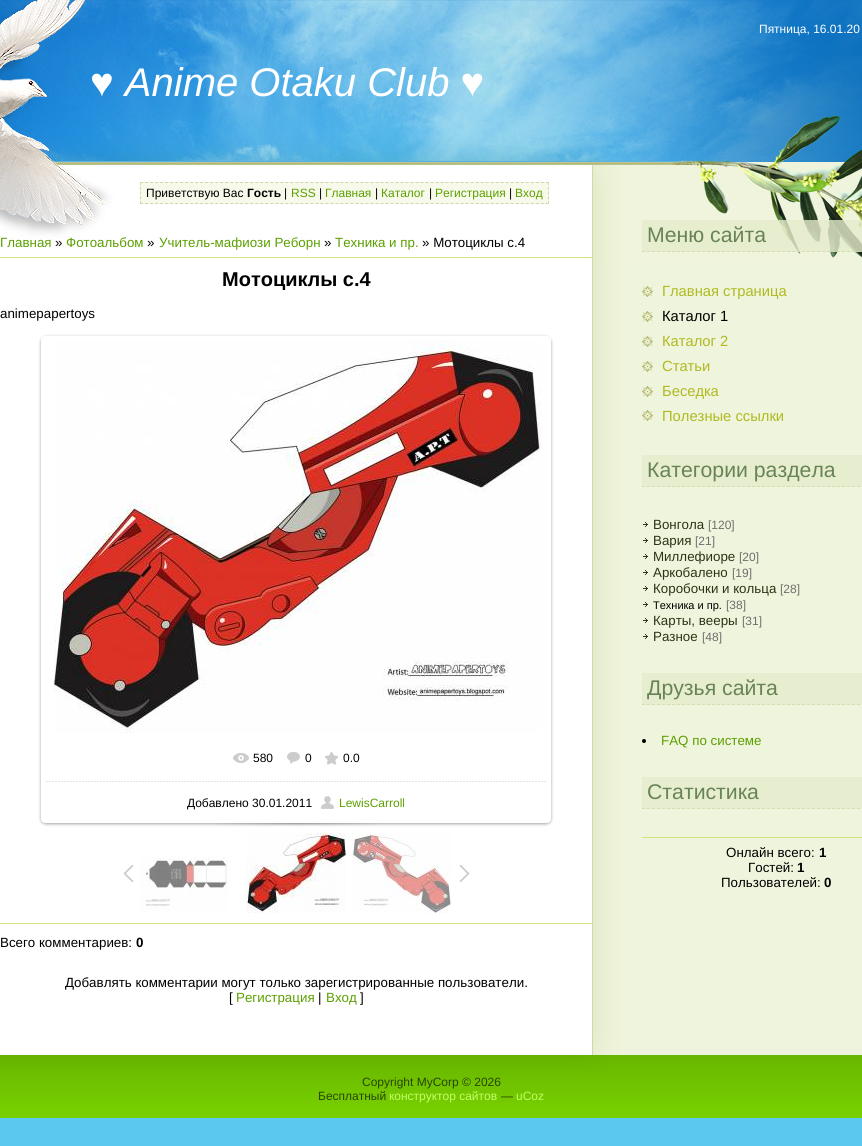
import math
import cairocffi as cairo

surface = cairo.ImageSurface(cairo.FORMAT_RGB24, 862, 1146)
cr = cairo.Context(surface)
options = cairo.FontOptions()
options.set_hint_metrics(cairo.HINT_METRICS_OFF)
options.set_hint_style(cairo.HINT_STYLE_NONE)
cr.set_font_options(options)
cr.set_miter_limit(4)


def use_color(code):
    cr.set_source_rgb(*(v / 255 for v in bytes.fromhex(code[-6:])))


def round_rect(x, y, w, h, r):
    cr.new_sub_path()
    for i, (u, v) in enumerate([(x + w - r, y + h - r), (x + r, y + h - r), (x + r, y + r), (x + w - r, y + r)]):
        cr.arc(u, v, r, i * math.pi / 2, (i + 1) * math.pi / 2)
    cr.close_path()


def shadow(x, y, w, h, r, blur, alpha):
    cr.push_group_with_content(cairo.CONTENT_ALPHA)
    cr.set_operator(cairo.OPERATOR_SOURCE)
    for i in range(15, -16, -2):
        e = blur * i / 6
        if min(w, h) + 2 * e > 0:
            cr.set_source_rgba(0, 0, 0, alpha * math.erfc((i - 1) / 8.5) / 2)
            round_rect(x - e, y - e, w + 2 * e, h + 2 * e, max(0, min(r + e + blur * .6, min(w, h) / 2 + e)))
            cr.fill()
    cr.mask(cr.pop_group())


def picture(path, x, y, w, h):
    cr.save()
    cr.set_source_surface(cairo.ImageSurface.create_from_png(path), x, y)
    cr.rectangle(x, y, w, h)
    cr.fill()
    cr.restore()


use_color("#5bc9ef")
cr.paint()
picture("img1.png", 0, 264, 862, 751)
picture("img2.png", 0, 0, 862, 264)
cr.select_font_face("Liberation Sans")
cr.set_font_size(12)
use_color("#ffffff")
cr.move_to(759, 33)
cr.show_text("Пятница, 16.01.20")
cr.select_font_face("Liberation Sans", cairo.FONT_SLANT_ITALIC)
cr.set_font_size(40)
cr.move_to(90, 96)
cr.show_text("♥ Anime Otaku Club ♥")
use_color("#f7faeb")
cr.rectangle(140, 182, 409, 22)
cr.fill()
cr.new_path()
cr.move_to(140, 182.5)
cr.line_to(549, 182.5)
use_color("#cfd9a8")
cr.set_line_width(1)
cr.set_dash([3, 2.01])
cr.stroke()
cr.new_path()
cr.move_to(548.5, 182)
cr.line_to(548.5, 204)
cr.set_dash([3, 1.75])
cr.stroke()
cr.new_path()
cr.move_to(140, 203.5)
cr.line_to(549, 203.5)
cr.set_dash([3, 2.01])
cr.stroke()
cr.new_path()
cr.move_to(140.5, 182)
cr.line_to(140.5, 204)
cr.set_dash([3, 1.75])
cr.stroke()
cr.select_font_face("Liberation Sans")
cr.set_font_size(12)
use_color("#000000")
cr.move_to(146, 197)
cr.show_text("Приветствую Вас")
cr.select_font_face("Liberation Sans", cairo.FONT_SLANT_NORMAL, cairo.FONT_WEIGHT_BOLD)
cr.move_to(247, 197)
cr.show_text("Гость")
cr.select_font_face("Liberation Sans")
cr.move_to(284, 197)
cr.show_text("|")
use_color("#5c9f00")
cr.move_to(291, 197)
cr.show_text("RSS")
use_color("#000000")
cr.move_to(319, 197)
cr.show_text("|")
use_color("#5c9f00")
cr.move_to(325, 197)
cr.show_text("Главная")
use_color("#000000")
cr.move_to(375, 197)
cr.show_text("|")
use_color("#5c9f00")
cr.move_to(381, 197)
cr.show_text("Каталог")
use_color("#000000")
cr.move_to(429, 197)
cr.show_text("|")
use_color("#5c9f00")
cr.move_to(435, 197)
cr.show_text("Регистрация")
use_color("#000000")
cr.move_to(509, 197)
cr.show_text("|")
use_color("#5c9f00")
cr.move_to(515, 197)
cr.show_text("Вход")
cr.set_font_size(13.35)
cr.move_to(0, 247)
cr.show_text("Главная")
use_color("#000000")
cr.move_to(55, 247)
cr.show_text("»")
use_color("#5c9f00")
cr.move_to(66, 247)
cr.show_text("Фотоальбом")
use_color("#000000")
cr.move_to(147, 247)
cr.show_text("»")
use_color("#5c9f00")
cr.move_to(159, 247)
cr.show_text("Учитель-мафиози Реборн")
use_color("#000000")
cr.move_to(324, 247)
cr.show_text("»")
use_color("#5c9f00")
cr.move_to(335, 247)
cr.show_text("Техника и пр.")
use_color("#000000")
cr.move_to(422, 247)
cr.show_text("» Мотоциклы с.4")
use_color("#d6e37d")
cr.rectangle(0, 257, 592, 1)
cr.fill()
cr.select_font_face("Liberation Sans", cairo.FONT_SLANT_NORMAL, cairo.FONT_WEIGHT_BOLD)
cr.set_font_size(20)
use_color("#000000")
cr.move_to(222, 286)
cr.show_text("Мотоциклы с.4")
cr.select_font_face("Liberation Sans")
cr.set_font_size(13.35)
cr.move_to(0, 318)
cr.show_text("animepapertoys")
cr.save()
cr.set_fill_rule(cairo.FILL_RULE_EVEN_ODD)
cr.new_path()
cr.move_to(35, 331)
cr.line_to(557, 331)
cr.line_to(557, 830)
cr.line_to(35, 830)
cr.close_path()
cr.move_to(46, 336)
cr.line_to(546, 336)
cr.curve_to(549, 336, 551, 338, 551, 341)
cr.line_to(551, 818)
cr.curve_to(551, 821, 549, 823, 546, 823)
cr.line_to(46, 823)
cr.curve_to(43, 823, 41, 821, 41, 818)
cr.line_to(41, 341)
cr.curve_to(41, 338, 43, 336, 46, 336)
cr.close_path()
cr.clip()
use_color("#000000")
shadow(41, 337, 510, 487, 5, 1.5, 0.37)
cr.restore()
picture("img3.png", 54, 341, 488, 392)
picture("img4.png", 233, 753, 16, 10)
cr.set_font_size(12)
cr.move_to(253, 762)
cr.show_text("580")
picture("img5.png", 287, 752, 13, 12)
cr.move_to(305, 762)
cr.show_text("0")
picture("img6.png", 325, 752, 13, 13)
cr.move_to(343, 762)
cr.show_text("0.0")
picture("img7.png", 46, 781, 500, 1)
cr.move_to(187, 807)
cr.show_text("Добавлено 30.01.2011")
picture("img8.png", 321, 796, 13, 13)
use_color("#5c9f00")
cr.move_to(339, 807)
cr.show_text("LewisCarroll")
picture("img9.png", 216, 823, 161, 3)
picture("img10.png", 123, 865, 11, 17)
picture("img11.png", 140, 857, 88, 55)
picture("img12.png", 246, 833, 100, 80)
picture("img13.png", 352, 833, 100, 80)
picture("img14.png", 459, 865, 11, 17)
use_color("#d6e37d")
cr.rectangle(0, 923, 592, 1)
cr.fill()
cr.set_font_size(13.35)
use_color("#000000")
cr.move_to(0, 947)
cr.show_text("Всего комментариев:")
cr.select_font_face("Liberation Sans", cairo.FONT_SLANT_NORMAL, cairo.FONT_WEIGHT_BOLD)
cr.move_to(136, 947)
cr.show_text("0")
cr.select_font_face("Liberation Sans")
cr.move_to(65, 987)
cr.show_text("Добавлять комментарии могут только зарегистрированные пользователи.")
cr.move_to(229, 1002)
cr.show_text("[")
use_color("#5c9f00")
cr.move_to(236, 1002)
cr.show_text("Регистрация")
use_color("#000000")
cr.move_to(318, 1002)
cr.show_text("|")
use_color("#5c9f00")
cr.move_to(326, 1002)
cr.show_text("Вход")
use_color("#000000")
cr.move_to(360, 1002)
cr.show_text("]")
cr.set_source_rgba(0.898, 0.922, 0.8, 0.8)
cr.rectangle(642, 220, 220, 32)
cr.fill()
cr.new_path()
cr.move_to(642, 251.5)
cr.line_to(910, 251.5)
cr.set_source_rgba(0.812, 0.851, 0.659, 0.8)
cr.set_dash([3, 2])
cr.stroke()
cr.set_font_size(21.25)
use_color("#688456")
cr.move_to(647, 242)
cr.show_text("Меню сайта")
picture("img15.png", 642, 286, 11, 11)
cr.set_font_size(14.75)
use_color("#b0b921")
cr.move_to(662, 296)
cr.show_text("Главная страница")
picture("img15.png", 642, 311, 11, 11)
use_color("#000000")
cr.move_to(662, 321)
cr.show_text("Каталог 1")
picture("img15.png", 642, 336, 11, 11)
use_color("#b0b921")
cr.move_to(662, 346)
cr.show_text("Каталог 2")
picture("img15.png", 642, 361, 11, 11)
cr.move_to(662, 371)
cr.show_text("Статьи")
picture("img15.png", 642, 386, 11, 11)
cr.move_to(662, 396)
cr.show_text("Беседка")
picture("img15.png", 642, 410, 11, 11)
cr.move_to(662, 421)
cr.show_text("Полезные ссылки")
use_color("#e7edcf")
cr.rectangle(642, 455, 220, 32)
cr.fill()
cr.new_path()
cr.move_to(642, 486.5)
cr.line_to(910, 486.5)
use_color("#d5deb2")
cr.stroke()
cr.set_font_size(21.25)
use_color("#688456")
cr.move_to(647, 477)
cr.show_text("Категории раздела")
picture("img16.png", 643, 522, 5, 5)
cr.set_font_size(13.35)
use_color("#2b3414")
cr.move_to(653, 529)
cr.show_text("Вонгола")
cr.set_font_size(12)
use_color("#6e6e6e")
cr.move_to(708, 529)
cr.show_text("[120]")
picture("img16.png", 643, 538, 5, 5)
cr.set_font_size(13.35)
use_color("#2b3414")
cr.move_to(653, 545)
cr.show_text("Вария")
cr.set_font_size(12)
use_color("#6e6e6e")
cr.move_to(695, 545)
cr.show_text("[21]")
picture("img16.png", 643, 554, 5, 5)
cr.set_font_size(13.35)
use_color("#2b3414")
cr.move_to(653, 561)
cr.show_text("Миллефиоре")
cr.set_font_size(12)
use_color("#6e6e6e")
cr.move_to(739, 561)
cr.show_text("[20]")
picture("img16.png", 643, 570, 5, 5)
cr.set_font_size(13.35)
use_color("#2b3414")
cr.move_to(653, 577)
cr.show_text("Аркобалено")
cr.set_font_size(12)
use_color("#6e6e6e")
cr.move_to(732, 577)
cr.show_text("[19]")
picture("img16.png", 643, 586, 5, 5)
cr.set_font_size(13.35)
use_color("#2b3414")
cr.move_to(653, 593)
cr.show_text("Коробочки и кольца")
cr.set_font_size(12)
use_color("#6e6e6e")
cr.move_to(780, 593)
cr.show_text("[28]")
picture("img16.png", 643, 602, 5, 5)
cr.set_font_size(11)
use_color("#000000")
cr.move_to(653, 609)
cr.show_text("Техника и пр.")
cr.set_font_size(12)
use_color("#6e6e6e")
cr.move_to(726, 609)
cr.show_text("[38]")
picture("img16.png", 643, 618, 5, 5)
cr.set_font_size(13.35)
use_color("#2b3414")
cr.move_to(653, 625)
cr.show_text("Карты, вееры")
cr.set_font_size(12)
use_color("#6e6e6e")
cr.move_to(742, 625)
cr.show_text("[31]")
picture("img16.png", 643, 634, 5, 5)
cr.set_font_size(13.35)
use_color("#2b3414")
cr.move_to(653, 641)
cr.show_text("Разное")
cr.set_font_size(12)
use_color("#6e6e6e")
cr.move_to(702, 641)
cr.show_text("[48]")
use_color("#e7edcf")
cr.rectangle(642, 673, 220, 32)
cr.fill()
cr.new_path()
cr.move_to(642, 704.5)
cr.line_to(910, 704.5)
use_color("#d5deb2")
cr.stroke()
cr.set_font_size(21.25)
use_color("#688456")
cr.move_to(647, 695)
cr.show_text("Друзья сайта")
use_color("#000000")
cr.new_path()
cr.arc(644, 741, 2, 0, 2 * math.pi)
cr.fill()
cr.set_font_size(13.35)
use_color("#5c9f00")
cr.move_to(661, 745)
cr.show_text("FAQ по системе")
use_color("#e7edcf")
cr.rectangle(642, 777, 220, 32)
cr.fill()
cr.new_path()
cr.move_to(642, 808.5)
cr.line_to(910, 808.5)
use_color("#d5deb2")
cr.stroke()
cr.set_font_size(21.25)
use_color("#688456")
cr.move_to(647, 799)
cr.show_text("Статистика")
use_color("#d6e37d")
cr.rectangle(642, 837, 220, 1)
cr.fill()
cr.set_font_size(13.35)
use_color("#000000")
cr.move_to(726, 857)
cr.show_text("Онлайн всего:")
cr.select_font_face("Liberation Sans", cairo.FONT_SLANT_NORMAL, cairo.FONT_WEIGHT_BOLD)
cr.move_to(819, 857)
cr.show_text("1")
cr.select_font_face("Liberation Sans")
cr.move_to(748, 872)
cr.show_text("Гостей:")
cr.select_font_face("Liberation Sans", cairo.FONT_SLANT_NORMAL, cairo.FONT_WEIGHT_BOLD)
cr.move_to(797, 872)
cr.show_text("1")
cr.select_font_face("Liberation Sans")
cr.move_to(721, 887)
cr.show_text("Пользователей:")
cr.select_font_face("Liberation Sans", cairo.FONT_SLANT_NORMAL, cairo.FONT_WEIGHT_BOLD)
cr.move_to(824, 887)
cr.show_text("0")
picture("img17.png", 0, 1015, 862, 103)
cr.select_font_face("Liberation Sans")
cr.set_font_size(12)
use_color("#284500")
cr.move_to(362, 1086)
cr.show_text("Copyright MyCorp © 2026")
cr.move_to(318, 1100)
cr.show_text("Бесплатный")
use_color("#bfff67")
cr.move_to(389, 1100)
cr.show_text("конструктор сайтов")
use_color("#284500")
cr.move_to(501, 1100)
cr.show_text("—")
use_color("#bfff67")
cr.move_to(516, 1100)
cr.show_text("uCoz")
surface.write_to_png("result.png")
